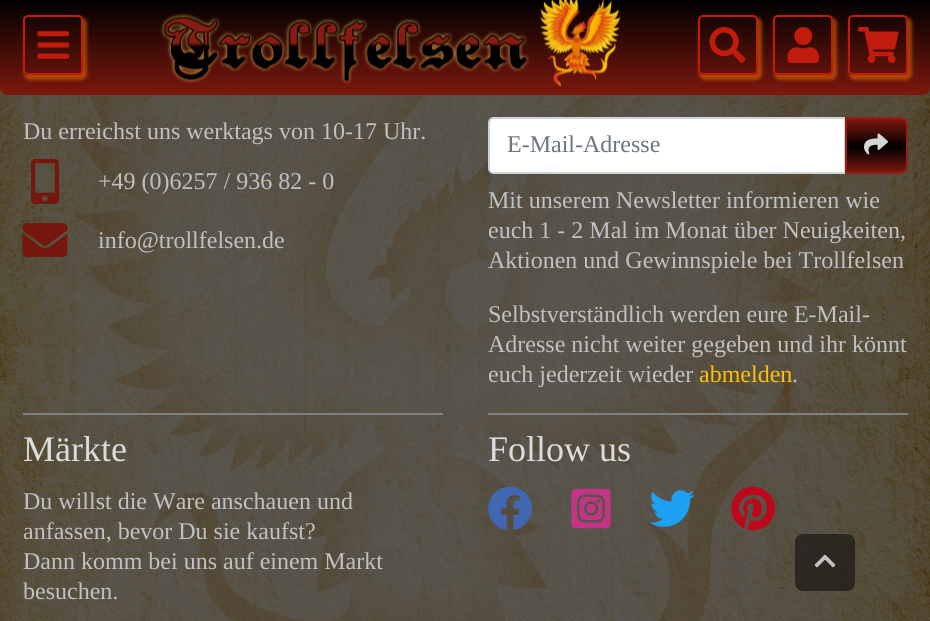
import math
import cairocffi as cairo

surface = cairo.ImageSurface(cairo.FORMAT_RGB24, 930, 621)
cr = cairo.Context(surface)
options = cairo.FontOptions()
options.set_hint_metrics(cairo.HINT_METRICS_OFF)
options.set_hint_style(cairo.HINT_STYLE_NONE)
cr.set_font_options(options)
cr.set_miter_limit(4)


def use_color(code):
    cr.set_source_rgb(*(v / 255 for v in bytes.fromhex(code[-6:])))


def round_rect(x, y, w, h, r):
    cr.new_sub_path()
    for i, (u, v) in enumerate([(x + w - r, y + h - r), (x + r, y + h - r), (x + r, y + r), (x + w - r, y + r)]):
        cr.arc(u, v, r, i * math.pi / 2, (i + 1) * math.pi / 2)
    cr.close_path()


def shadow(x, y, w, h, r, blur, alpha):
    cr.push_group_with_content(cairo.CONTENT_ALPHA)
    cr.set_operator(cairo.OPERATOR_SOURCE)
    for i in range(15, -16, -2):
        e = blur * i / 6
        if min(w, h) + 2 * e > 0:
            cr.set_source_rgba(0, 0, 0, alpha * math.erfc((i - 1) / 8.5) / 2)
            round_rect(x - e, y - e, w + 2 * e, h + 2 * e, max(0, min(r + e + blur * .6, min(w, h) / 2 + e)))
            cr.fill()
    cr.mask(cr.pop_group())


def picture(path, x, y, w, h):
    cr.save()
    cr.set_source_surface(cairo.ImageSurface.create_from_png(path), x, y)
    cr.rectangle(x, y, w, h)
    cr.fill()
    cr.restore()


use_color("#ffffff")
cr.paint()
picture("img1.png", 0, 87, 930, 534)
gradient = cairo.LinearGradient(465, 0, 465, 95)
gradient.add_color_stop_rgba(0.01, 0, 0, 0, 1)
gradient.add_color_stop_rgba(1, 0.49, 0.094, 0.055, 1)
cr.set_source(gradient)
cr.new_path()
cr.move_to(0, 0)
cr.line_to(930, 0)
cr.line_to(930, 87)
cr.curve_to(930, 91.5, 926.5, 95, 922, 95)
cr.line_to(8, 95)
cr.curve_to(3.5, 95, 0, 91.5, 0, 87)
cr.close_path()
cr.fill()
picture("img2.png", 160, 13, 370, 71)
picture("img3.png", 540, 0, 81, 87)
cr.save()
cr.set_fill_rule(cairo.FILL_RULE_EVEN_ODD)
cr.new_path()
cr.move_to(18, 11)
cr.line_to(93, 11)
cr.line_to(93, 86)
cr.line_to(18, 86)
cr.close_path()
cr.move_to(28, 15)
cr.line_to(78, 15)
cr.curve_to(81, 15, 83, 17, 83, 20)
cr.line_to(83, 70)
cr.curve_to(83, 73, 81, 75, 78, 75)
cr.line_to(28, 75)
cr.curve_to(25, 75, 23, 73, 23, 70)
cr.line_to(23, 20)
cr.curve_to(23, 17, 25, 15, 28, 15)
cr.close_path()
cr.clip()
use_color("#f47300")
shadow(24, 17, 63, 63, 6, 1.5, 0.51)
cr.restore()
round_rect(24, 16, 58, 58, 4)
use_color("#c11c0b")
cr.stroke()
picture("img4.png", 37, 31, 32, 28)
cr.save()
cr.set_fill_rule(cairo.FILL_RULE_EVEN_ODD)
cr.new_path()
cr.move_to(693, 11)
cr.line_to(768, 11)
cr.line_to(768, 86)
cr.line_to(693, 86)
cr.close_path()
cr.move_to(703, 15)
cr.line_to(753, 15)
cr.curve_to(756, 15, 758, 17, 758, 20)
cr.line_to(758, 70)
cr.curve_to(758, 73, 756, 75, 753, 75)
cr.line_to(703, 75)
cr.curve_to(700, 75, 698, 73, 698, 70)
cr.line_to(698, 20)
cr.curve_to(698, 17, 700, 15, 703, 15)
cr.close_path()
cr.clip()
use_color("#f47300")
shadow(699, 17, 63, 63, 6, 1.5, 0.51)
cr.restore()
round_rect(699, 16, 58, 58, 4)
cr.stroke()
picture("img5.png", 709, 27, 37, 36)
cr.save()
cr.set_fill_rule(cairo.FILL_RULE_EVEN_ODD)
cr.new_path()
cr.move_to(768, 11)
cr.line_to(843, 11)
cr.line_to(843, 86)
cr.line_to(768, 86)
cr.close_path()
cr.move_to(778, 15)
cr.line_to(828, 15)
cr.curve_to(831, 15, 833, 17, 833, 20)
cr.line_to(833, 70)
cr.curve_to(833, 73, 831, 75, 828, 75)
cr.line_to(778, 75)
cr.curve_to(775, 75, 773, 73, 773, 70)
cr.line_to(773, 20)
cr.curve_to(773, 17, 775, 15, 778, 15)
cr.close_path()
cr.clip()
use_color("#f47300")
shadow(774, 17, 63, 63, 6, 1.5, 0.51)
cr.restore()
round_rect(774, 16, 58, 58, 4)
cr.stroke()
picture("img6.png", 787, 27, 32, 36)
cr.save()
cr.set_fill_rule(cairo.FILL_RULE_EVEN_ODD)
cr.new_path()
cr.move_to(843, 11)
cr.line_to(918, 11)
cr.line_to(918, 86)
cr.line_to(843, 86)
cr.close_path()
cr.move_to(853, 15)
cr.line_to(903, 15)
cr.curve_to(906, 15, 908, 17, 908, 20)
cr.line_to(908, 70)
cr.curve_to(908, 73, 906, 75, 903, 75)
cr.line_to(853, 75)
cr.curve_to(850, 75, 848, 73, 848, 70)
cr.line_to(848, 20)
cr.curve_to(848, 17, 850, 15, 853, 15)
cr.close_path()
cr.clip()
use_color("#f47300")
shadow(849, 17, 63, 63, 6, 1.5, 0.51)
cr.restore()
round_rect(849, 16, 58, 58, 4)
cr.stroke()
picture("img7.png", 858, 27, 41, 36)
cr.select_font_face("Liberation Serif")
cr.set_font_size(24)
use_color("#c1c1c1")
cr.move_to(23, 139)
cr.show_text("Du erreichst uns werktags von 10-17 Uhr.")
picture("img8.png", 31, 159, 28, 45)
cr.move_to(98, 189)
cr.show_text("+49 (0)6257 / 936 82 - 0")
picture("img9.png", 22, 223, 46, 34)
cr.move_to(98, 248)
cr.show_text("info@trollfelsen.de")
use_color("#ffffff")
cr.new_path()
cr.move_to(494, 118)
cr.line_to(845, 118)
cr.line_to(845, 173)
cr.line_to(494, 173)
cr.curve_to(491, 173, 489, 171, 489, 168)
cr.line_to(489, 123)
cr.curve_to(489, 120, 491, 118, 494, 118)
cr.close_path()
cr.fill_preserve()
use_color("#ced4da")
cr.stroke()
use_color("#6c757d")
cr.move_to(507, 152)
cr.show_text("E-Mail-Adresse")
cr.save()
cr.new_path()
cr.move_to(845, 117)
cr.line_to(900, 117)
cr.curve_to(904.5, 117, 908, 120.5, 908, 125)
cr.line_to(908, 166)
cr.curve_to(908, 170.5, 904.5, 174, 900, 174)
cr.line_to(845, 174)
cr.close_path()
cr.clip()
gradient = cairo.LinearGradient(876, 119, 876, 173)
gradient.add_color_stop_rgba(0, 0.49, 0.094, 0.055, 1)
gradient.add_color_stop_rgba(0.51, 0, 0, 0, 1)
gradient.add_color_stop_rgba(1, 0.49, 0.094, 0.055, 1)
cr.set_source(gradient)
cr.rectangle(847, 119, 61, 54)
cr.fill()
cr.restore()
cr.new_path()
cr.move_to(846, 118)
cr.line_to(900, 118)
cr.curve_to(904, 118, 907, 121, 907, 125)
cr.line_to(907, 166)
cr.curve_to(907, 170, 904, 173, 900, 173)
cr.line_to(846, 173)
cr.close_path()
use_color("#921e14")
cr.stroke()
picture("img10.png", 864, 133, 24, 22)
use_color("#c1c1c1")
cr.move_to(488, 208)
cr.show_text("Mit unserem Newsletter informieren wie")
cr.move_to(488, 238)
cr.show_text("euch 1 - 2 Mal im Monat über Neuigkeiten,")
cr.move_to(488, 268)
cr.show_text("Aktionen und Gewinnspiele bei Trollfelsen")
cr.move_to(488, 322)
cr.show_text("Selbstverständlich werden eure E-Mail-")
cr.move_to(488, 352)
cr.show_text("Adresse nicht weiter gegeben und ihr könnt")
cr.move_to(488, 382)
cr.show_text("euch jederzeit wieder")
use_color("#ffc107")
cr.move_to(699, 382)
cr.show_text("abmelden")
use_color("#c1c1c1")
cr.move_to(792, 382)
cr.show_text(".")
use_color("#808080")
cr.rectangle(23, 413, 420, 2)
cr.fill()
cr.set_font_size(36)
use_color("#dcdcdc")
cr.move_to(23, 461)
cr.show_text("Märkte")
cr.set_font_size(24)
use_color("#c1c1c1")
cr.move_to(23, 509)
cr.show_text("Du willst die Ware anschauen und")
cr.move_to(23, 539)
cr.show_text("anfassen, bevor Du sie kaufst?")
cr.move_to(23, 569)
cr.show_text("Dann komm bei uns auf einem Markt")
cr.move_to(23, 599)
cr.show_text("besuchen.")
use_color("#808080")
cr.rectangle(488, 413, 420, 2)
cr.fill()
cr.set_font_size(36)
use_color("#dcdcdc")
cr.move_to(488, 461)
cr.show_text("Follow us")
picture("img11.png", 488, 486, 44, 44)
picture("img12.png", 571, 488, 40, 41)
picture("img13.png", 649, 490, 46, 37)
picture("img14.png", 731, 486, 44, 45)
cr.set_source_rgba(0, 0, 0, 0.49)
round_rect(795, 534, 60, 57, 8)
cr.fill()
picture("img15.png", 814, 554, 22, 14)
surface.write_to_png("result.png")
